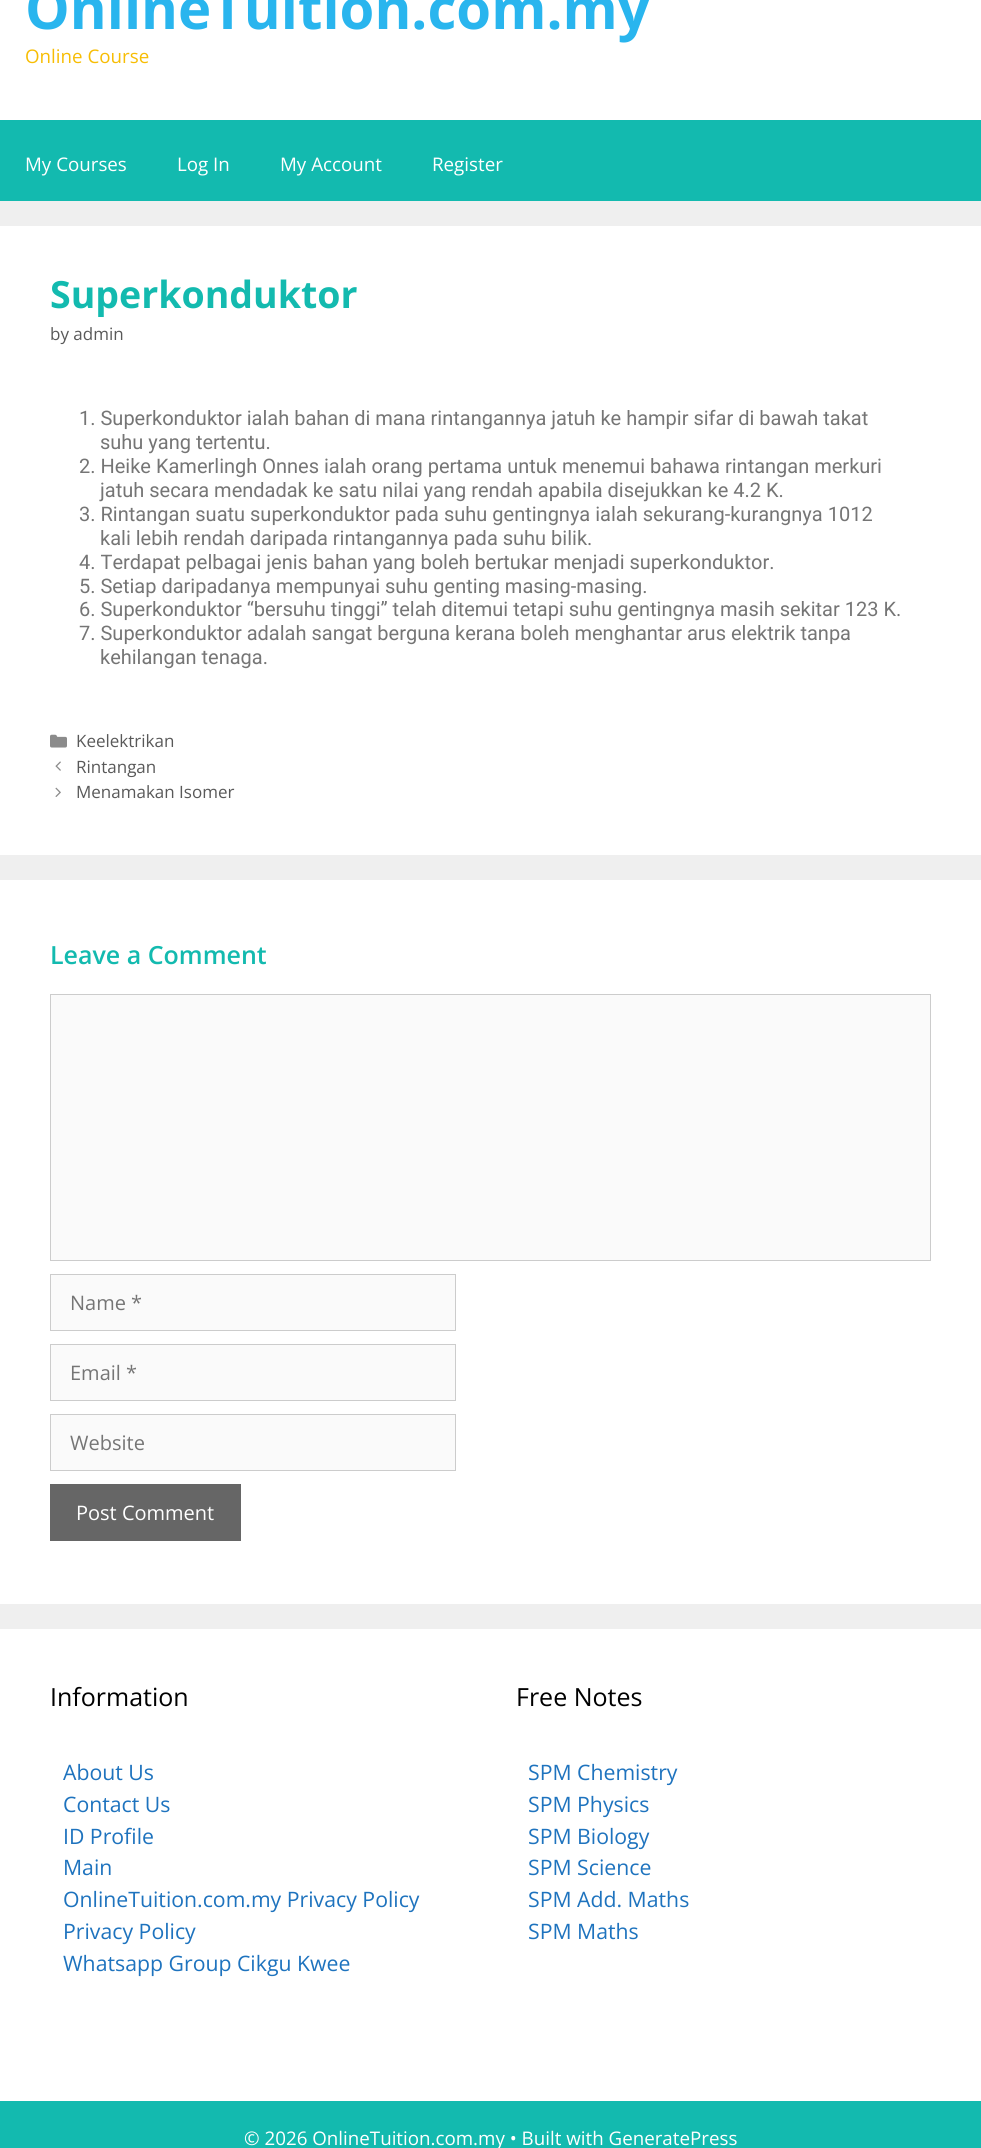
import math
import cairocffi as cairo

surface = cairo.ImageSurface(cairo.FORMAT_RGB24, 981, 2148)
cr = cairo.Context(surface)
options = cairo.FontOptions()
options.set_hint_metrics(cairo.HINT_METRICS_OFF)
options.set_hint_style(cairo.HINT_STYLE_NONE)
cr.set_font_options(options)
cr.set_miter_limit(4)


def use_color(code):
    cr.set_source_rgb(*(v / 255 for v in bytes.fromhex(code[-6:])))


def picture(path, x, y, w, h):
    cr.save()
    cr.set_source_surface(cairo.ImageSurface.create_from_png(path), x, y)
    cr.rectangle(x, y, w, h)
    cr.fill()
    cr.restore()


use_color("#efefef")
cr.paint()
use_color("#ffffff")
cr.rectangle(0, 0, 981, 120)
cr.fill()
cr.select_font_face("Open Sans", cairo.FONT_SLANT_NORMAL, cairo.FONT_WEIGHT_BOLD)
cr.set_font_size(56.25)
use_color("#29b5ee")
cr.move_to(25, 29)
cr.show_text("OnlineTuition.com.my")
cr.select_font_face("Open Sans")
cr.set_font_size(18.75)
use_color("#f7bd04")
cr.move_to(25, 63)
cr.show_text("Online Course")
use_color("#13baaf")
cr.rectangle(0, 120, 981, 81)
cr.fill()
use_color("#ffffff")
cr.move_to(25, 171)
cr.show_text("My Courses")
cr.move_to(177, 171)
cr.show_text("Log In")
cr.move_to(280, 171)
cr.show_text("My Account")
cr.move_to(432, 171)
cr.show_text("Register")
cr.rectangle(0, 226, 981, 629)
cr.fill()
cr.select_font_face("Open Sans", cairo.FONT_SLANT_NORMAL, cairo.FONT_WEIGHT_BOLD)
cr.set_font_size(37.5)
use_color("#13baaf")
cr.move_to(50, 308)
cr.show_text("Superkonduktor")
cr.select_font_face("Open Sans")
cr.set_font_size(17)
use_color("#595959")
cr.move_to(50, 340)
cr.show_text("by admin")
cr.select_font_face("Roboto")
cr.set_font_size(20)
use_color("#757575")
cr.move_to(79, 425)
cr.show_text("1. Superkonduktor ialah bahan di mana rintangannya jatuh ke hampir sifar di bawah takat")
cr.move_to(100, 449)
cr.show_text("suhu yang tertentu.")
cr.move_to(79, 473)
cr.show_text("2. Heike Kamerlingh Onnes ialah orang pertama untuk menemui bahawa rintangan merkuri")
cr.move_to(100, 497)
cr.show_text("jatuh secara mendadak ke satu nilai yang rendah apabila disejukkan ke 4.2 K.")
cr.move_to(79, 521)
cr.show_text("3. Rintangan suatu superkonduktor pada suhu gentingnya ialah sekurang-kurangnya 1012")
cr.move_to(100, 545)
cr.show_text("kali lebih rendah daripada rintangannya pada suhu bilik.")
cr.move_to(79, 569)
cr.show_text("4. Terdapat pelbagai jenis bahan yang boleh bertukar menjadi superkonduktor.")
cr.move_to(79, 593)
cr.show_text("5. Setiap daripadanya mempunyai suhu genting masing-masing.")
cr.move_to(79, 616)
cr.show_text("6. Superkonduktor “bersuhu tinggi” telah ditemui tetapi suhu gentingnya masih sekitar 123 K.")
cr.move_to(79, 640)
cr.show_text("7. Superkonduktor adalah sangat berguna kerana boleh menghantar arus elektrik tanpa")
cr.move_to(100, 664)
cr.show_text("kehilangan tenaga.")
picture("img1.png", 50, 734, 17, 14)
cr.select_font_face("Open Sans")
cr.set_font_size(17)
use_color("#595959")
cr.move_to(76, 747)
cr.show_text("Keelektrikan")
picture("img2.png", 55, 761, 6, 10)
cr.move_to(76, 773)
cr.show_text("Rintangan")
picture("img3.png", 55, 787, 6, 10)
cr.move_to(76, 798)
cr.show_text("Menamakan Isomer")
use_color("#ffffff")
cr.rectangle(0, 880, 981, 724)
cr.fill()
cr.select_font_face("Open Sans SemiBold")
cr.set_font_size(25)
use_color("#13baaf")
cr.move_to(50, 964)
cr.show_text("Leave a Comment")
use_color("#fafafa")
cr.rectangle(50.5, 994.5, 880, 266)
cr.fill_preserve()
use_color("#cccccc")
cr.set_line_width(1)
cr.stroke()
use_color("#fafafa")
cr.rectangle(50.5, 1274.5, 405, 56)
cr.fill_preserve()
use_color("#cccccc")
cr.stroke()
cr.select_font_face("Open Sans")
cr.set_font_size(20)
use_color("#757575")
cr.move_to(70, 1310)
cr.show_text("Name *")
use_color("#fafafa")
cr.rectangle(50.5, 1344.5, 405, 56)
cr.fill_preserve()
use_color("#cccccc")
cr.stroke()
use_color("#757575")
cr.move_to(70, 1380)
cr.show_text("Email *")
use_color("#fafafa")
cr.rectangle(50.5, 1414.5, 405, 56)
cr.fill_preserve()
use_color("#cccccc")
cr.stroke()
use_color("#757575")
cr.move_to(70, 1450)
cr.show_text("Website")
use_color("#666666")
cr.rectangle(50, 1484, 191, 57)
cr.fill()
use_color("#ffffff")
cr.move_to(76, 1520)
cr.show_text("Post Comment")
cr.rectangle(0, 1629, 981, 472)
cr.fill()
cr.set_font_size(25)
use_color("#000000")
cr.move_to(50, 1706)
cr.show_text("Information")
cr.set_font_size(21.25)
use_color("#1e73be")
cr.move_to(63, 1780)
cr.show_text("About Us")
cr.move_to(63, 1812)
cr.show_text("Contact Us")
cr.move_to(63, 1844)
cr.show_text("ID Profile")
cr.move_to(63, 1875)
cr.show_text("Main")
cr.move_to(63, 1907)
cr.show_text("OnlineTuition.com.my Privacy Policy")
cr.move_to(63, 1939)
cr.show_text("Privacy Policy")
cr.move_to(63, 1971)
cr.show_text("Whatsapp Group Cikgu Kwee")
cr.set_font_size(25)
use_color("#000000")
cr.move_to(516, 1706)
cr.show_text("Free Notes")
cr.set_font_size(21.25)
use_color("#1e73be")
cr.move_to(528, 1780)
cr.show_text("SPM Chemistry")
cr.move_to(528, 1812)
cr.show_text("SPM Physics")
cr.move_to(528, 1844)
cr.show_text("SPM Biology")
cr.move_to(528, 1875)
cr.show_text("SPM Science")
cr.move_to(528, 1907)
cr.show_text("SPM Add. Maths")
cr.move_to(528, 1939)
cr.show_text("SPM Maths")
use_color("#13baaf")
cr.rectangle(0, 2101, 981, 47)
cr.fill()
cr.set_font_size(18.75)
use_color("#ffffff")
cr.move_to(244, 2145)
cr.show_text("© 2026 OnlineTuition.com.my • Built with GeneratePress")
surface.write_to_png("result.png")
